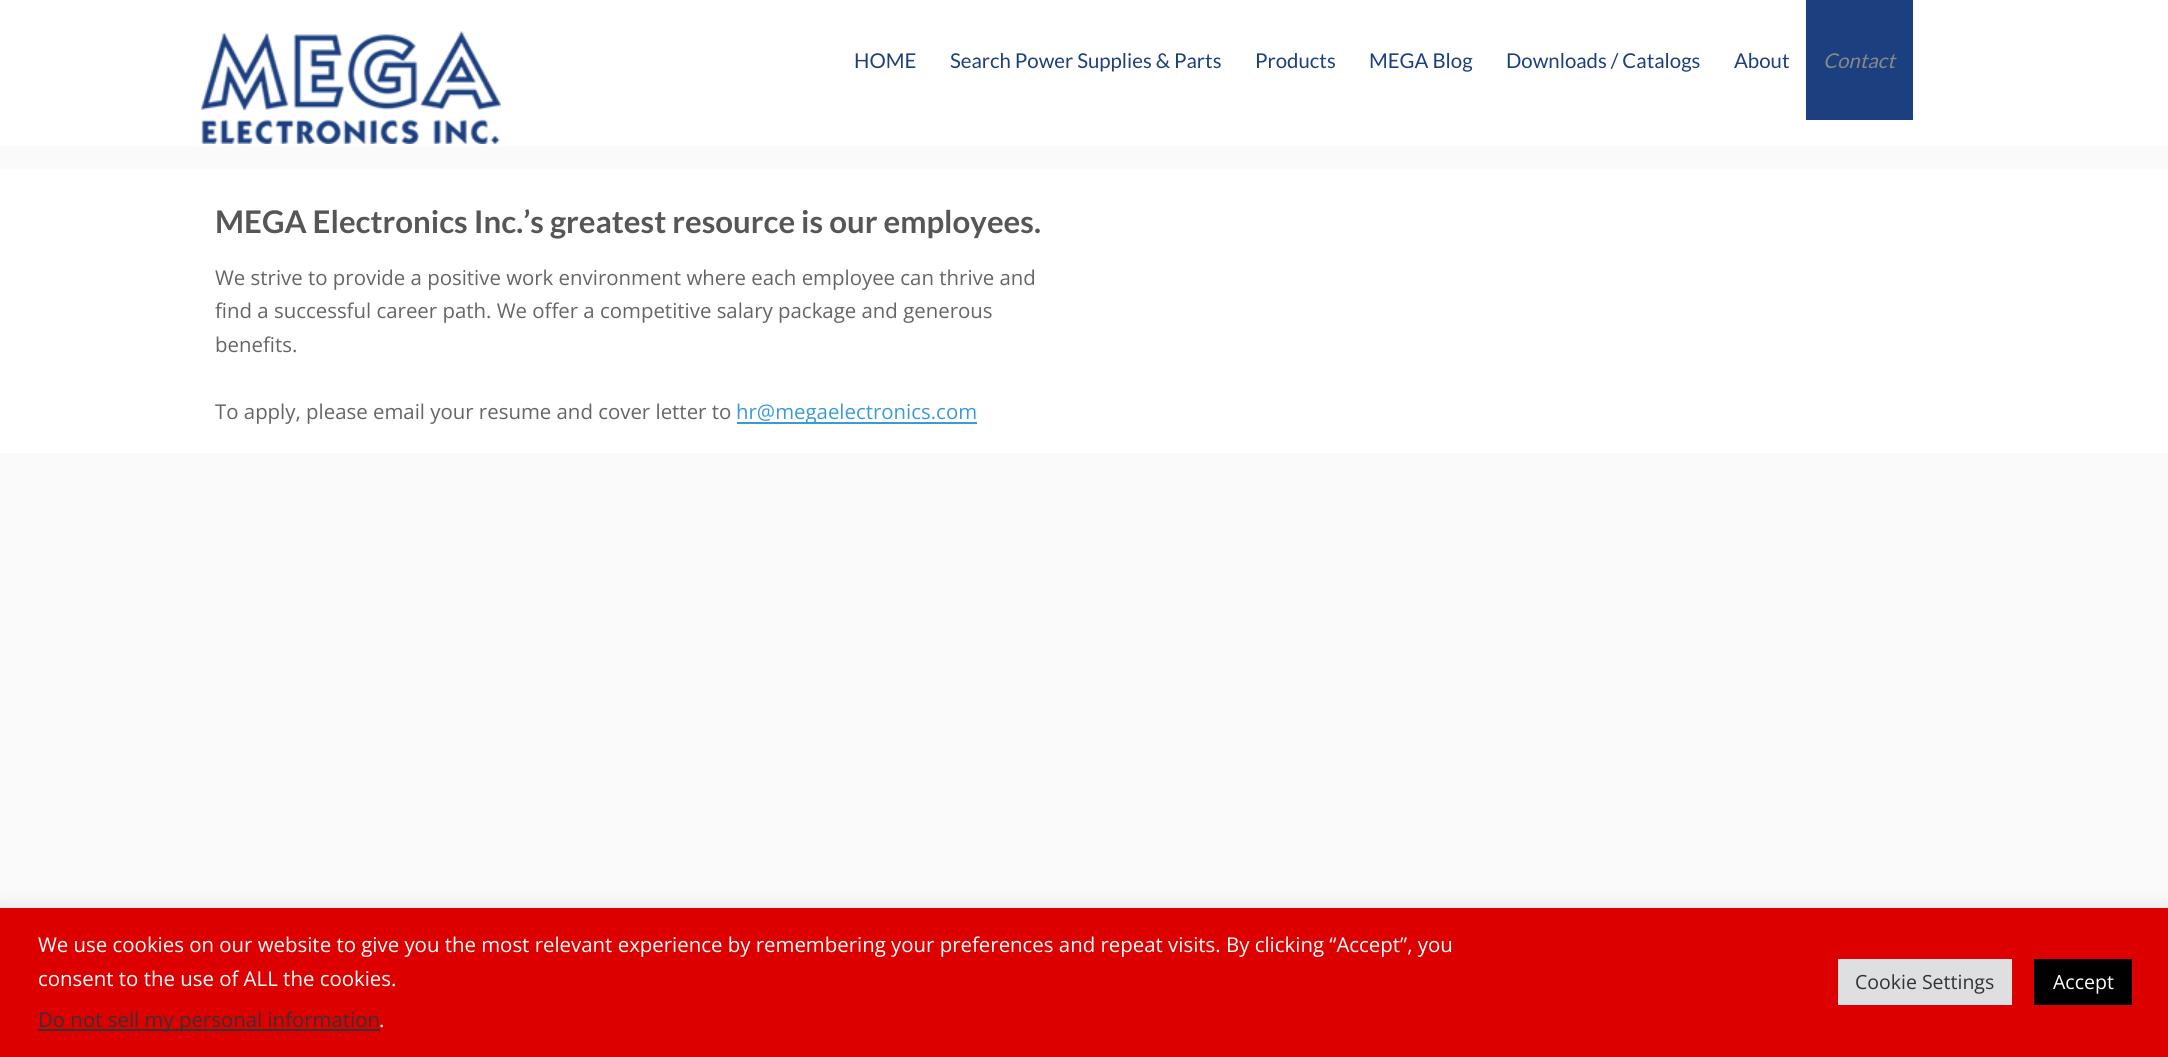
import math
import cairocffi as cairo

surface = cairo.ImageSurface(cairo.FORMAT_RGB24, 2168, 1057)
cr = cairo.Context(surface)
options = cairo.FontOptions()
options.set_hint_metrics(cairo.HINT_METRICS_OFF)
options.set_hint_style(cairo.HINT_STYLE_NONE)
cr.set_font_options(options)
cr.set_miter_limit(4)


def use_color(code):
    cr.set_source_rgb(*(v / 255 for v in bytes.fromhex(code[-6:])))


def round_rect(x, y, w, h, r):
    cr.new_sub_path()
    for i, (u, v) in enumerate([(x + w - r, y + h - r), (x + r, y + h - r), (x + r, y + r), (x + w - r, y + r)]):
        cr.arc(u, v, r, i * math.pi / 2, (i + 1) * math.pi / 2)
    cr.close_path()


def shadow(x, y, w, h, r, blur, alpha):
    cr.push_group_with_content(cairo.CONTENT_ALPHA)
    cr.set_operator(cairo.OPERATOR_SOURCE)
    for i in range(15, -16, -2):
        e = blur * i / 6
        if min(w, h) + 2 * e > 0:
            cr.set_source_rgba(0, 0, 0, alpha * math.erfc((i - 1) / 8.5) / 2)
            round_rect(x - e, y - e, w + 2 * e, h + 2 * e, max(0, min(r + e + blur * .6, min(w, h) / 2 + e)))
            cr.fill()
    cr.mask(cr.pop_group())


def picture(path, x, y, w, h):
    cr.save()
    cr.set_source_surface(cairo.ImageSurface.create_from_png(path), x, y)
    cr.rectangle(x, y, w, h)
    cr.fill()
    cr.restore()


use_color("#ffffff")
cr.paint()
picture("img1.png", 201, 31, 300, 113)
cr.select_font_face("Lato")
cr.set_font_size(20.4)
use_color("#1b3f7f")
cr.move_to(854, 68)
cr.show_text("HOME")
cr.move_to(950, 68)
cr.show_text("Search Power Supplies & Parts")
cr.move_to(1255, 68)
cr.show_text("Products")
cr.move_to(1369, 68)
cr.show_text("MEGA Blog")
cr.move_to(1506, 68)
cr.show_text("Downloads / Catalogs")
cr.move_to(1734, 68)
cr.show_text("About")
cr.rectangle(1806, 0, 107, 120)
cr.fill()
cr.select_font_face("Lato", cairo.FONT_SLANT_ITALIC)
use_color("#888888")
cr.move_to(1823, 68)
cr.show_text("Contact")
use_color("#fafafa")
cr.rectangle(0, 146, 2168, 762)
cr.fill()
use_color("#ffffff")
cr.rectangle(0, 170, 2168, 283)
cr.fill()
cr.select_font_face("Lato", cairo.FONT_SLANT_NORMAL, cairo.FONT_WEIGHT_BOLD)
cr.set_font_size(31.2)
use_color("#565656")
cr.move_to(215, 233)
cr.show_text("MEGA Electronics Inc.’s greatest resource is our employees.")
cr.select_font_face("Open Sans")
cr.set_font_size(20.4)
use_color("#656565")
cr.move_to(215, 285)
cr.show_text("We strive to provide a positive work environment where each employee can thrive and")
cr.move_to(215, 318)
cr.show_text("find a successful career path. We offer a competitive salary package and generous")
cr.move_to(215, 352)
cr.show_text("benefits.")
cr.move_to(215, 419)
cr.show_text("To apply, please email your resume and cover letter to")
use_color("#3a9ad9")
cr.rectangle(737, 422, 240, 2)
cr.fill()
cr.move_to(736, 419)
cr.show_text("hr@megaelectronics.com")
use_color("#acabab")
shadow(0, 906, 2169, 150, 0, 7.5, 0.3)
use_color("#dd0000")
cr.rectangle(0, 908, 2168, 149)
cr.fill()
use_color("#ffffff")
cr.move_to(38, 952)
cr.show_text("We use cookies on our website to give you the most relevant experience by remembering your preferences and repeat visits. By clicking “Accept”, you")
cr.move_to(38, 986)
cr.show_text("consent to the use of ALL the cookies.")
use_color("#333333")
cr.rectangle(38, 1029, 342, 2)
cr.fill()
cr.move_to(38, 1027)
cr.show_text("Do not sell my personal information")
use_color("#ffffff")
cr.move_to(379, 1027)
cr.show_text(".")
use_color("#dedfe0")
cr.rectangle(1838, 959, 174, 46)
cr.fill()
cr.set_font_size(19.5)
use_color("#333333")
cr.move_to(1855, 989)
cr.show_text("Cookie Settings")
use_color("#000000")
cr.rectangle(2034, 959, 98, 46)
cr.fill()
use_color("#ffffff")
cr.move_to(2053, 989)
cr.show_text("Accept")
surface.write_to_png("result.png")
